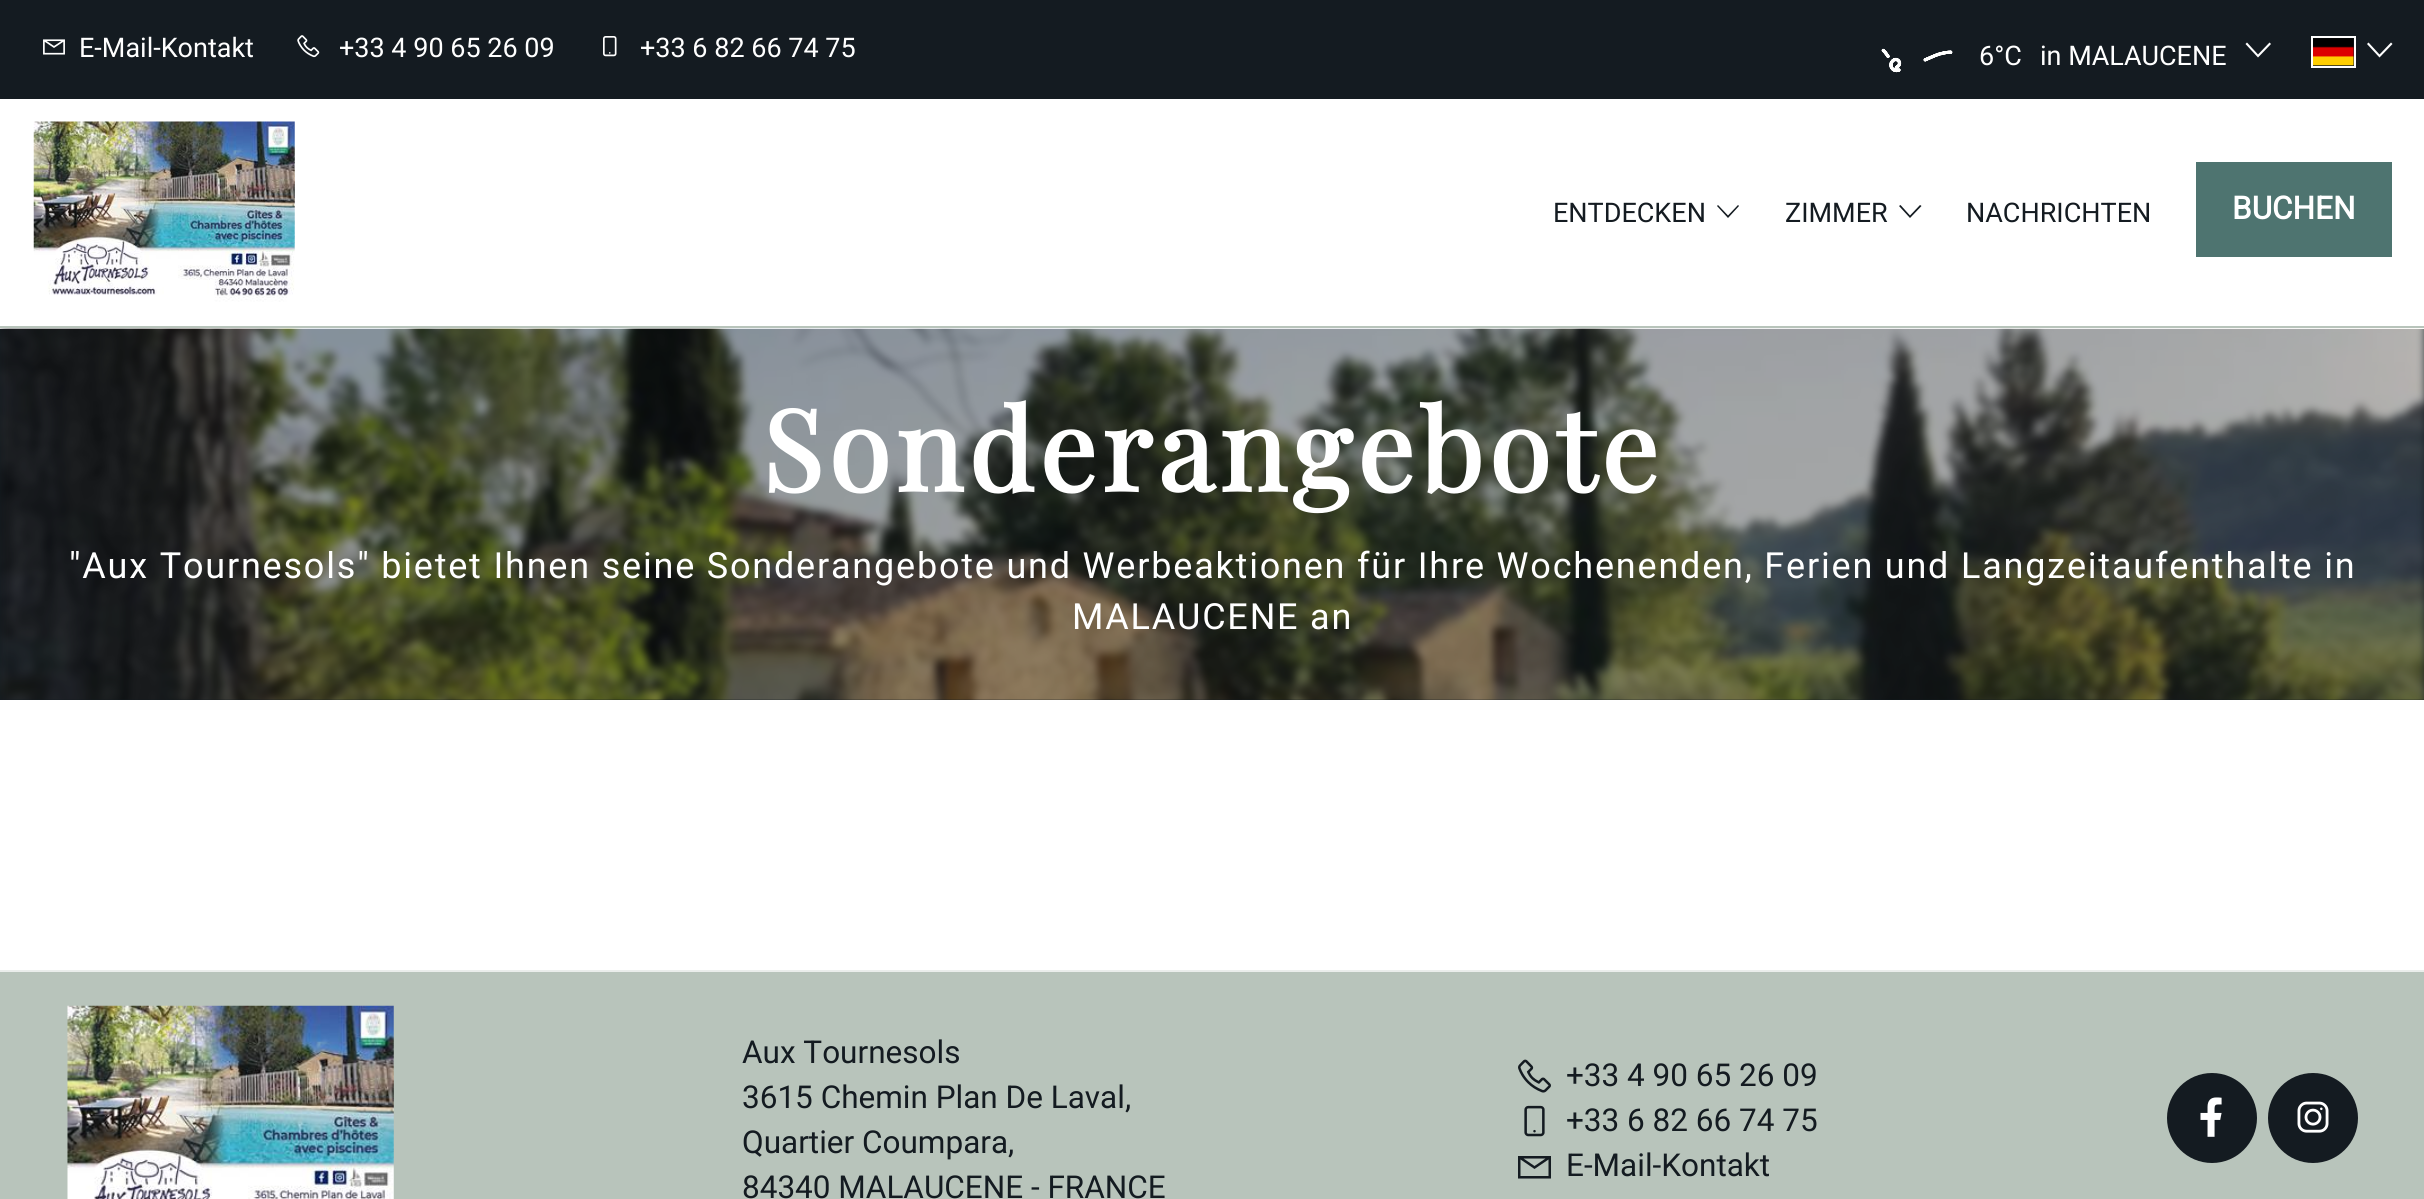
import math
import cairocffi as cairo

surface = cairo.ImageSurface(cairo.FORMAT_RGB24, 2424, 1199)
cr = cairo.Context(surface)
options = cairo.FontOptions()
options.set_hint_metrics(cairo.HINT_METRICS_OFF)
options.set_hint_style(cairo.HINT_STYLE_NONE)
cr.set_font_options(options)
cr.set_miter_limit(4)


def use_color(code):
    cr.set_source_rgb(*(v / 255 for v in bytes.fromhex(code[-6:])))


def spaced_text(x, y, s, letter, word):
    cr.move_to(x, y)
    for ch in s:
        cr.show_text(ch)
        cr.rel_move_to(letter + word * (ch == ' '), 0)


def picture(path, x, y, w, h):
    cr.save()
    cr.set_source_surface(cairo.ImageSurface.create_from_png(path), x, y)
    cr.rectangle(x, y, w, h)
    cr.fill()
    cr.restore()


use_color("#ffffff")
cr.paint()
use_color("#141b21")
cr.rectangle(0, 0, 2424, 99)
cr.fill()
picture("img1.png", 43, 39, 22, 16)
cr.select_font_face("Roboto")
cr.set_font_size(27)
use_color("#ffffff")
cr.move_to(79, 57)
cr.show_text("E-Mail-Kontakt")
picture("img2.png", 297, 35, 23, 23)
cr.move_to(339, 57)
cr.show_text("+33 4 90 65 26 09")
picture("img3.png", 603, 36, 14, 21)
cr.move_to(640, 57)
cr.show_text("+33 6 82 66 74 75")
picture("img4.png", 1881, 48, 72, 25)
cr.move_to(1979, 65)
cr.show_text("6°C")
cr.move_to(2040, 65)
cr.show_text("in MALAUCENE")
cr.new_path()
cr.move_to(2269.5, 42.5)
cr.line_to(2271, 44)
cr.line_to(2258, 57.5)
cr.line_to(2245.5, 44)
cr.line_to(2247, 42.5)
cr.line_to(2258, 54.5)
cr.close_path()
cr.fill()
cr.rectangle(2312, 37, 43, 30)
cr.stroke()
picture("img5.png", 2313, 38, 41, 28)
cr.new_path()
cr.move_to(2391, 42.5)
cr.line_to(2392.5, 44)
cr.line_to(2379.5, 57.5)
cr.line_to(2367, 44)
cr.line_to(2368.5, 42.5)
cr.line_to(2379.5, 54.5)
cr.close_path()
cr.fill()
use_color("#b8c4bb")
cr.rectangle(0, 326, 2424, 2)
cr.fill()
picture("img6.png", 33, 121, 262, 181)
use_color("#141b21")
cr.move_to(1553, 222)
cr.show_text("ENTDECKEN")
cr.new_path()
cr.move_to(1738, 205)
cr.line_to(1739, 206)
cr.line_to(1728, 218)
cr.line_to(1717, 206)
cr.line_to(1718, 205)
cr.line_to(1728, 215.5)
cr.close_path()
cr.fill()
cr.move_to(1785, 222)
cr.show_text("ZIMMER")
cr.new_path()
cr.move_to(1920, 205)
cr.line_to(1921.5, 206)
cr.line_to(1910, 218)
cr.line_to(1899, 206)
cr.line_to(1900.5, 205)
cr.line_to(1910, 215.5)
cr.close_path()
cr.fill()
cr.move_to(1966, 222)
cr.show_text("NACHRICHTEN")
use_color("#4e7470")
cr.rectangle(2196, 162, 196, 95)
cr.fill()
cr.select_font_face("Roboto", cairo.FONT_SLANT_NORMAL, cairo.FONT_WEIGHT_BOLD)
cr.set_font_size(31.5)
use_color("#ffffff")
cr.move_to(2232, 219)
cr.show_text("BUCHEN")
use_color("#141b21")
cr.rectangle(0, 329, 2424, 371)
cr.fill()
picture("img7.png", 0, 328, 2424, 372)
cr.select_font_face("Playfair Display", cairo.FONT_SLANT_NORMAL, cairo.FONT_WEIGHT_BOLD)
cr.set_font_size(112.5)
use_color("#ffffff")
spaced_text(762, 492, "Sonderangebote", 5.6, 0)
cr.select_font_face("Roboto")
cr.set_font_size(36)
spaced_text(69, 578, "\"Aux Tournesols\" bietet Ihnen seine Sonderangebote und Werbeaktionen für Ihre Wochenenden, Ferien und Langzeitaufenthalte in", 1.8, 0)
spaced_text(1072, 629, "MALAUCENE an", 1.8, 0)
use_color("#b8c4bb")
cr.rectangle(0, 972, 2424, 227)
cr.fill()
use_color("#eaedeb")
cr.rectangle(0, 970, 2424, 2)
cr.fill()
picture("img8.png", 67, 1005, 327, 194)
cr.set_font_size(31.5)
use_color("#141b21")
cr.move_to(742, 1063)
cr.show_text("Aux Tournesols")
cr.move_to(742, 1108)
cr.show_text("3615 Chemin Plan De Laval,")
cr.move_to(742, 1153)
cr.show_text("Quartier Coumpara,")
cr.move_to(742, 1198)
cr.show_text("84340 MALAUCENE - FRANCE")
picture("img9.png", 1518, 1059, 33, 34)
cr.move_to(1566, 1086)
cr.show_text("+33 4 90 65 26 09")
picture("img10.png", 1524, 1105, 21, 32)
cr.move_to(1566, 1131)
cr.show_text("+33 6 82 66 74 75")
cr.new_path()
cr.move_to(1518, 1156)
cr.line_to(1518, 1178.5)
cr.line_to(1551, 1178.5)
cr.line_to(1551, 1156)
cr.close_path()
cr.move_to(1523.5, 1158.5)
cr.line_to(1545.5, 1158.5)
cr.line_to(1534.5, 1166)
cr.close_path()
cr.move_to(1520.5, 1159.5)
cr.line_to(1534.5, 1169)
cr.line_to(1548.5, 1159.5)
cr.line_to(1548.5, 1176)
cr.line_to(1520.5, 1176)
cr.close_path()
cr.fill()
cr.move_to(1566, 1176)
cr.show_text("E-Mail-Kontakt")
cr.new_path()
cr.arc(2212, 1118, 45, 0, 2 * math.pi)
cr.fill()
picture("img11.png", 2200, 1097, 22, 40)
cr.arc(2313, 1118, 45, 0, 2 * math.pi)
cr.fill()
picture("img12.png", 2297, 1101, 32, 32)
surface.write_to_png("result.png")
